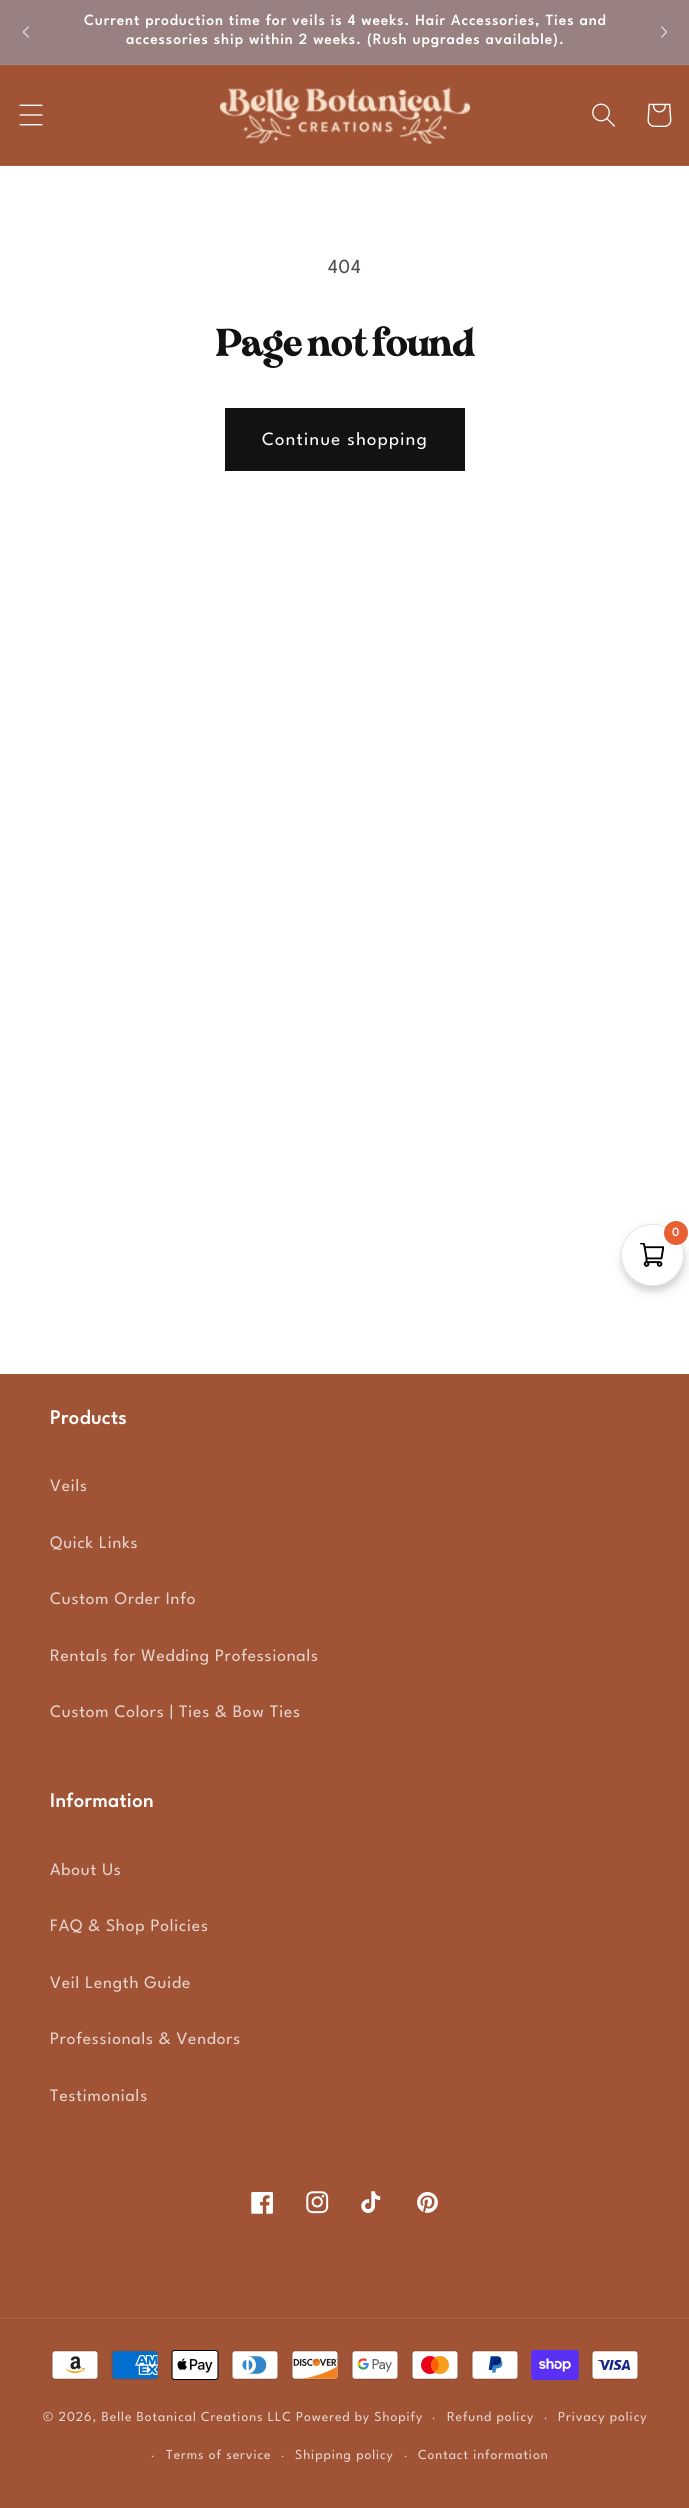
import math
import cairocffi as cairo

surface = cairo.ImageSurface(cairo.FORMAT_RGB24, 689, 2508)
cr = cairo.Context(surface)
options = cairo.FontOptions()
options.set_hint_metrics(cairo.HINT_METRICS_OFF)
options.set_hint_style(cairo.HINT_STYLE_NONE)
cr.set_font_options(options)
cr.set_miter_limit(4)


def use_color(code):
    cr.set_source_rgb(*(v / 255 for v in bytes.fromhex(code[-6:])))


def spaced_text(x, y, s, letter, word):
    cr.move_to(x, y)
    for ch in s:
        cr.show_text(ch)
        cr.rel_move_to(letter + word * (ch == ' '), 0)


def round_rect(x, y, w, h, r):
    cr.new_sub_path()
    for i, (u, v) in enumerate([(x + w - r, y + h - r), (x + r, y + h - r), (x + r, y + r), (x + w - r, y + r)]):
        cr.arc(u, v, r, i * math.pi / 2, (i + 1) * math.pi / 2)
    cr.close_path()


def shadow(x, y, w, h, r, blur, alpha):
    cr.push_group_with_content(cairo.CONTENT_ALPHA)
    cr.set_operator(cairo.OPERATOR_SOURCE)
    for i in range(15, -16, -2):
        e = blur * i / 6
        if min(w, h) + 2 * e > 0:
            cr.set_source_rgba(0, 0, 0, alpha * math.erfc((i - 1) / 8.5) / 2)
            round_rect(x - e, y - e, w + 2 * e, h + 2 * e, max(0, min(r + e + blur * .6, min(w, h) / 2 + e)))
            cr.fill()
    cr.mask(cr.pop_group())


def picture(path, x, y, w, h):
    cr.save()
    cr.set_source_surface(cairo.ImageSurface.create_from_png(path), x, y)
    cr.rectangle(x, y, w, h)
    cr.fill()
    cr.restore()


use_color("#ffffff")
cr.paint()
use_color("#998081")
cr.rectangle(0, 0, 689, 64)
cr.fill()
use_color("#a18a8b")
cr.rectangle(0, 64, 689, 1)
cr.fill()
picture("img1.png", 22, 26, 7, 12)
cr.select_font_face("League Spartan", cairo.FONT_SLANT_NORMAL, cairo.FONT_WEIGHT_BOLD)
cr.set_font_size(15)
use_color("#ffffff")
spaced_text(84, 25, "Current production time for veils is 4 weeks. Hair Accessories, Ties and", 1.25, 0)
spaced_text(126, 44, "accessories ship within 2 weeks. (Rush upgrades available).", 1.25, 0)
picture("img2.png", 661, 26, 7, 12)
use_color("#a05335")
cr.rectangle(0, 65, 689, 100)
cr.fill()
use_color("#a86145")
cr.rectangle(0, 165, 689, 1)
cr.fill()
picture("img3.png", 19, 104, 24, 22)
picture("img4.png", 220, 87, 250, 57)
picture("img5.png", 592, 103, 23, 24)
picture("img6.png", 647, 103, 25, 24)
cr.select_font_face("League Spartan")
cr.set_font_size(20)
use_color("#4d4d4d")
spaced_text(328, 273, "404", 0.75, 0)
cr.select_font_face("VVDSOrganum", cairo.FONT_SLANT_NORMAL, cairo.FONT_WEIGHT_BOLD)
cr.set_font_size(37.5)
use_color("#121212")
spaced_text(216, 356, "Page not found", 0.75, 0)
cr.rectangle(225, 408, 240, 63)
cr.fill()
cr.select_font_face("League Spartan")
cr.set_font_size(18.75)
use_color("#ffffff")
spaced_text(262, 445, "Continue shopping", 1.25, 0)
use_color("#000000")
shadow(621, 1229, 63, 62, 31, 2.5, 0.08)
shadow(623, 1229, 62, 62, 31, 6, 0.12)
use_color("#ffffff")
round_rect(621, 1224, 63, 62, 31)
cr.fill()
round_rect(621.5, 1224.5, 62, 61, 30.5)
cr.set_source_rgba(0, 0, 0, 0.1)
cr.set_line_width(1)
cr.stroke()
use_color("#e75f33")
cr.arc(676, 1233, 12, 0, 2 * math.pi)
cr.fill()
cr.select_font_face("League Spartan", cairo.FONT_SLANT_NORMAL, cairo.FONT_WEIGHT_BOLD)
cr.set_font_size(12)
use_color("#ffffff")
cr.move_to(672, 1236)
cr.show_text("0")
picture("img7.png", 640, 1243, 24, 24)
use_color("#a05335")
cr.rectangle(0, 1374, 689, 1134)
cr.fill()
cr.set_font_size(20)
use_color("#ffffff")
spaced_text(50, 1424, "Products", 0.75, 0)
cr.select_font_face("League Spartan")
cr.set_font_size(17.5)
use_color("#e7d4cd")
spaced_text(50, 1491, "Veils", 0.75, 0)
spaced_text(50, 1548, "Quick Links", 0.75, 0)
spaced_text(50, 1604, "Custom Order Info", 0.75, 0)
spaced_text(50, 1661, "Rentals for Wedding Professionals", 0.75, 0)
spaced_text(50, 1717, "Custom Colors | Ties & Bow Ties", 0.75, 0)
cr.select_font_face("League Spartan", cairo.FONT_SLANT_NORMAL, cairo.FONT_WEIGHT_BOLD)
cr.set_font_size(20)
use_color("#ffffff")
spaced_text(50, 1807, "Information", 0.75, 0)
cr.select_font_face("League Spartan")
cr.set_font_size(17.5)
use_color("#e7d4cd")
spaced_text(50, 1875, "About Us", 0.75, 0)
spaced_text(50, 1931, "FAQ & Shop Policies", 0.75, 0)
spaced_text(50, 1988, "Veil Length Guide", 0.75, 0)
spaced_text(50, 2044, "Professionals & Vendors", 0.75, 0)
spaced_text(50, 2101, "Testimonials", 0.75, 0)
picture("img8.png", 251, 2192, 22, 22)
picture("img9.png", 306, 2191, 23, 23)
picture("img10.png", 361, 2191, 20, 22)
picture("img11.png", 417, 2192, 21, 21)
use_color("#a86145")
cr.rectangle(0, 2318, 689, 1)
cr.fill()
picture("img12.png", 51, 2350, 48, 30)
picture("img13.png", 111, 2350, 48, 30)
picture("img14.png", 171, 2350, 48, 30)
picture("img15.png", 231, 2350, 48, 30)
picture("img16.png", 291, 2350, 48, 30)
picture("img17.png", 351, 2350, 48, 30)
picture("img18.png", 411, 2350, 48, 30)
picture("img19.png", 471, 2350, 48, 30)
picture("img20.png", 531, 2350, 48, 30)
picture("img21.png", 591, 2350, 48, 30)
cr.set_font_size(13.75)
use_color("#e7d4cd")
spaced_text(43, 2421, "© 2026, Belle Botanical Creations LLC Powered by Shopify", 0.88, 0)
cr.set_font_size(12)
spaced_text(432, 2421, "·", 0.88, 0)
cr.set_font_size(13.75)
spaced_text(447, 2421, "Refund policy", 0.88, 0)
cr.set_font_size(12)
spaced_text(544, 2421, "·", 0.88, 0)
cr.set_font_size(13.75)
spaced_text(558, 2421, "Privacy policy", 0.88, 0)
cr.set_font_size(12)
spaced_text(151, 2459, "·", 0.88, 0)
cr.set_font_size(13.75)
spaced_text(166, 2459, "Terms of service", 0.88, 0)
cr.set_font_size(12)
spaced_text(281, 2459, "·", 0.88, 0)
cr.set_font_size(13.75)
spaced_text(295, 2459, "Shipping policy", 0.88, 0)
cr.set_font_size(12)
spaced_text(404, 2459, "·", 0.88, 0)
cr.set_font_size(13.75)
spaced_text(418, 2459, "Contact information", 0.88, 0)
surface.write_to_png("result.png")
